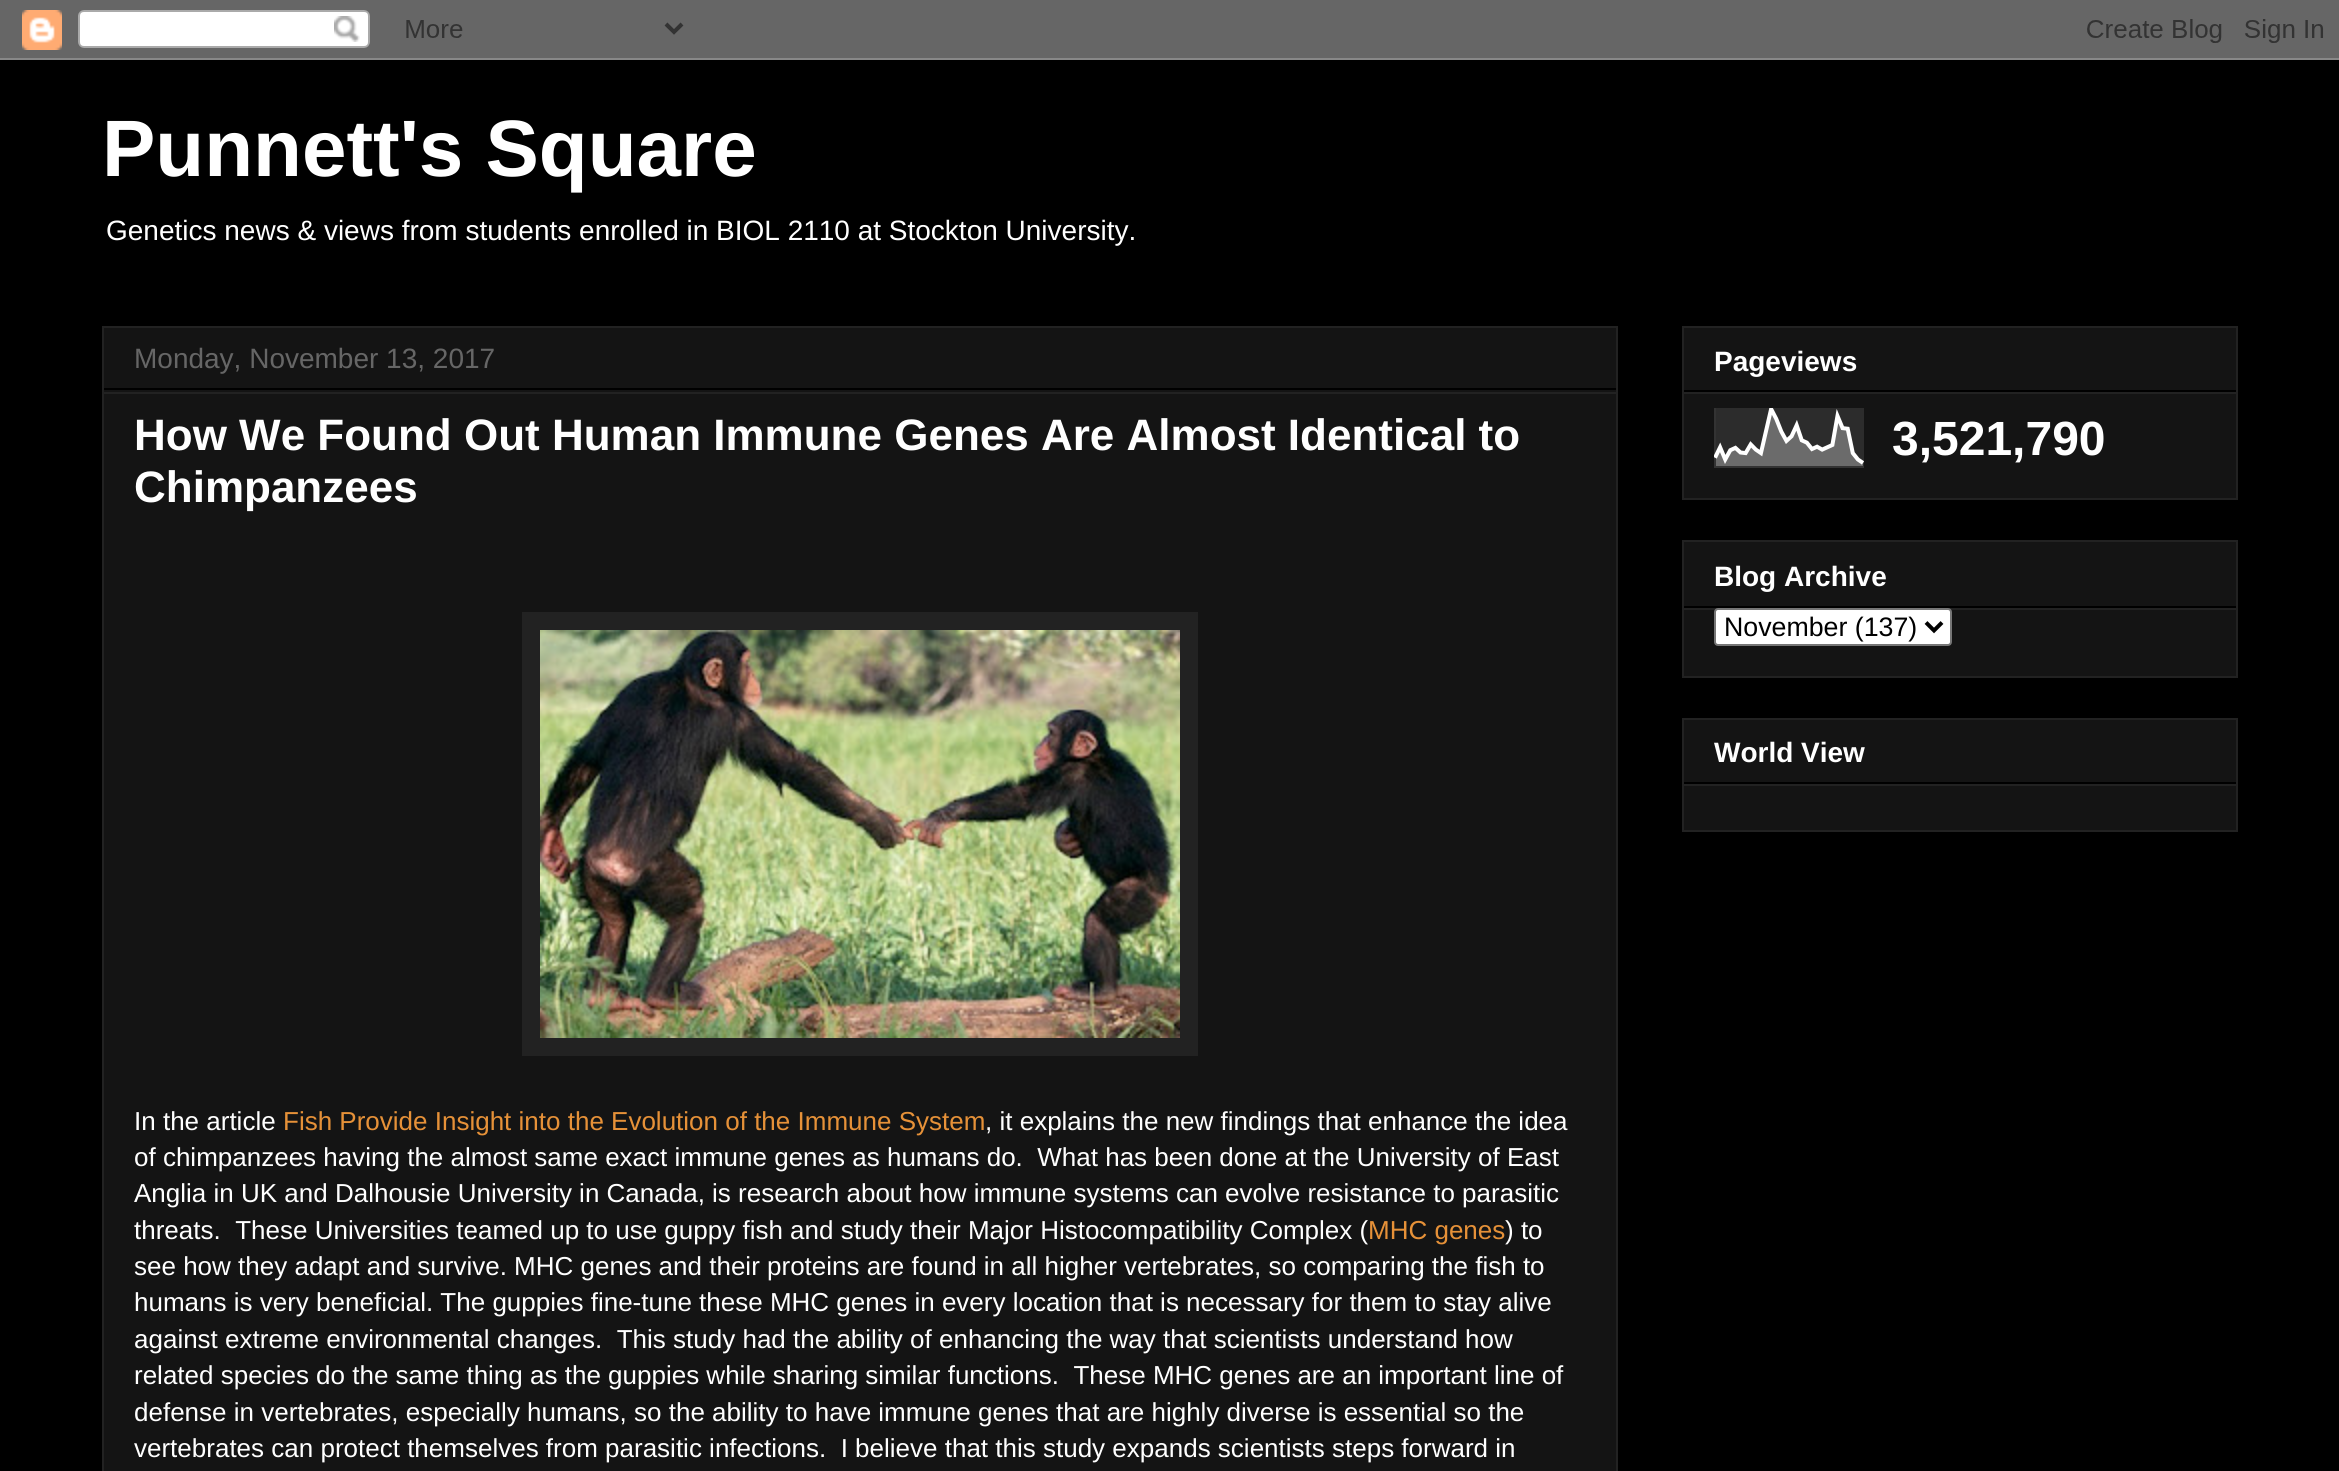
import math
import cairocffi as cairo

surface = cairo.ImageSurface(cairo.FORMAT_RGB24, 2339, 1471)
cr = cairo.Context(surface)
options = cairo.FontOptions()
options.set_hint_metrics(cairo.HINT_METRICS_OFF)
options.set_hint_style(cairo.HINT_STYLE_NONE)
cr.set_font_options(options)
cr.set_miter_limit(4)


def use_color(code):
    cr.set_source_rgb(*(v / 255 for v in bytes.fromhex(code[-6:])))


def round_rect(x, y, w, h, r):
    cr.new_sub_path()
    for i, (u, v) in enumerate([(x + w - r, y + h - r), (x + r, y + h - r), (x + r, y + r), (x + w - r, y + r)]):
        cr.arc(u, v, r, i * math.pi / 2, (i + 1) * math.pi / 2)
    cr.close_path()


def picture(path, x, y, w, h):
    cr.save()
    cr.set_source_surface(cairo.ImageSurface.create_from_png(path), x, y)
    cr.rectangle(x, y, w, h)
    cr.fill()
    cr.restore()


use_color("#000000")
cr.paint()
picture("img1.png", 0, 0, 2339, 60)
cr.select_font_face("Liberation Sans", cairo.FONT_SLANT_NORMAL, cairo.FONT_WEIGHT_BOLD)
cr.set_font_size(80)
use_color("#ffffff")
cr.move_to(102, 176)
cr.show_text("Punnett's Square")
cr.select_font_face("Liberation Sans")
cr.set_font_size(28)
cr.move_to(106, 240)
cr.show_text("Genetics news & views from students enrolled in BIOL 2110 at Stockton University.")
use_color("#141414")
cr.rectangle(103, 327, 1514, 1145)
cr.fill_preserve()
use_color("#222222")
cr.stroke()
use_color("#000000")
cr.rectangle(104, 388, 1512, 2)
cr.fill()
use_color("#666666")
cr.move_to(134, 368)
cr.show_text("Monday, November 13, 2017")
use_color("#222222")
cr.rectangle(104, 392, 1512, 2)
cr.fill()
cr.select_font_face("Liberation Sans", cairo.FONT_SLANT_NORMAL, cairo.FONT_WEIGHT_BOLD)
cr.set_font_size(44)
use_color("#ffffff")
cr.move_to(134, 450)
cr.show_text("How We Found Out Human Immune Genes Are Almost Identical to")
cr.move_to(134, 502)
cr.show_text("Chimpanzees")
use_color("#222222")
cr.rectangle(522, 612, 676, 444)
cr.fill()
picture("img2.png", 540, 630, 640, 408)
cr.select_font_face("Liberation Sans")
cr.set_font_size(26)
use_color("#ffffff")
cr.move_to(134, 1130)
cr.show_text("In the article")
use_color("#e69138")
cr.move_to(283, 1130)
cr.show_text("Fish Provide Insight into the Evolution of the Immune System")
use_color("#ffffff")
cr.move_to(985, 1130)
cr.show_text(", it explains the new findings that enhance the idea")
cr.move_to(134, 1166)
cr.show_text("of chimpanzees having the almost same exact immune genes as humans do.  What has been done at the University of East")
cr.move_to(134, 1202)
cr.show_text("Anglia in UK and Dalhousie University in Canada, is research about how immune systems can evolve resistance to parasitic")
cr.move_to(134, 1239)
cr.show_text("threats.  These Universities teamed up to use guppy fish and study their Major Histocompatibility Complex (")
use_color("#e69138")
cr.move_to(1368, 1239)
cr.show_text("MHC genes")
use_color("#ffffff")
cr.move_to(1505, 1239)
cr.show_text(") to")
cr.move_to(134, 1275)
cr.show_text("see how they adapt and survive. MHC genes and their proteins are found in all higher vertebrates, so comparing the fish to")
cr.move_to(134, 1311)
cr.show_text("humans is very beneficial. The guppies fine-tune these MHC genes in every location that is necessary for them to stay alive")
cr.move_to(134, 1348)
cr.show_text("against extreme environmental changes.  This study had the ability of enhancing the way that scientists understand how")
cr.move_to(134, 1384)
cr.show_text("related species do the same thing as the guppies while sharing similar functions.  These MHC genes are an important line of")
cr.move_to(134, 1421)
cr.show_text("defense in vertebrates, especially humans, so the ability to have immune genes that are highly diverse is essential so the")
cr.move_to(134, 1457)
cr.show_text("vertebrates can protect themselves from parasitic infections.  I believe that this study expands scientists steps forward in")
use_color("#141414")
cr.rectangle(1683, 327, 554, 172)
cr.fill_preserve()
use_color("#222222")
cr.stroke()
use_color("#000000")
cr.rectangle(1684, 390, 552, 2)
cr.fill()
cr.select_font_face("Liberation Sans", cairo.FONT_SLANT_NORMAL, cairo.FONT_WEIGHT_BOLD)
cr.set_font_size(28)
use_color("#ffffff")
cr.move_to(1714, 371)
cr.show_text("Pageviews")
use_color("#222222")
cr.rectangle(1684, 392, 552, 2)
cr.fill()
picture("img3.png", 1714, 408, 150, 60)
cr.set_font_size(48)
use_color("#ffffff")
cr.move_to(1892, 455)
cr.show_text("3,521,790")
use_color("#141414")
cr.rectangle(1683, 541, 554, 136)
cr.fill_preserve()
use_color("#222222")
cr.stroke()
use_color("#000000")
cr.rectangle(1684, 606, 552, 2)
cr.fill()
cr.set_font_size(28)
use_color("#ffffff")
cr.move_to(1714, 586)
cr.show_text("Blog Archive")
use_color("#222222")
cr.rectangle(1684, 608, 552, 2)
cr.fill()
use_color("#ffffff")
round_rect(1715, 609, 236, 36, 3)
cr.fill_preserve()
use_color("#767676")
cr.stroke()
cr.new_path()
cr.move_to(1926, 622.5)
cr.line_to(1934, 630.5)
cr.line_to(1942, 622.5)
use_color("#000000")
cr.set_line_width(4)
cr.stroke()
cr.select_font_face("Liberation Sans")
cr.set_font_size(26.75)
cr.move_to(1724, 636)
cr.show_text("November (137)")
use_color("#141414")
cr.rectangle(1683, 719, 554, 112)
cr.fill_preserve()
use_color("#222222")
cr.set_line_width(2)
cr.stroke()
use_color("#000000")
cr.rectangle(1684, 782, 552, 2)
cr.fill()
cr.select_font_face("Liberation Sans", cairo.FONT_SLANT_NORMAL, cairo.FONT_WEIGHT_BOLD)
cr.set_font_size(28)
use_color("#ffffff")
cr.move_to(1714, 762)
cr.show_text("World View")
use_color("#222222")
cr.rectangle(1684, 784, 552, 2)
cr.fill()
surface.write_to_png("result.png")
